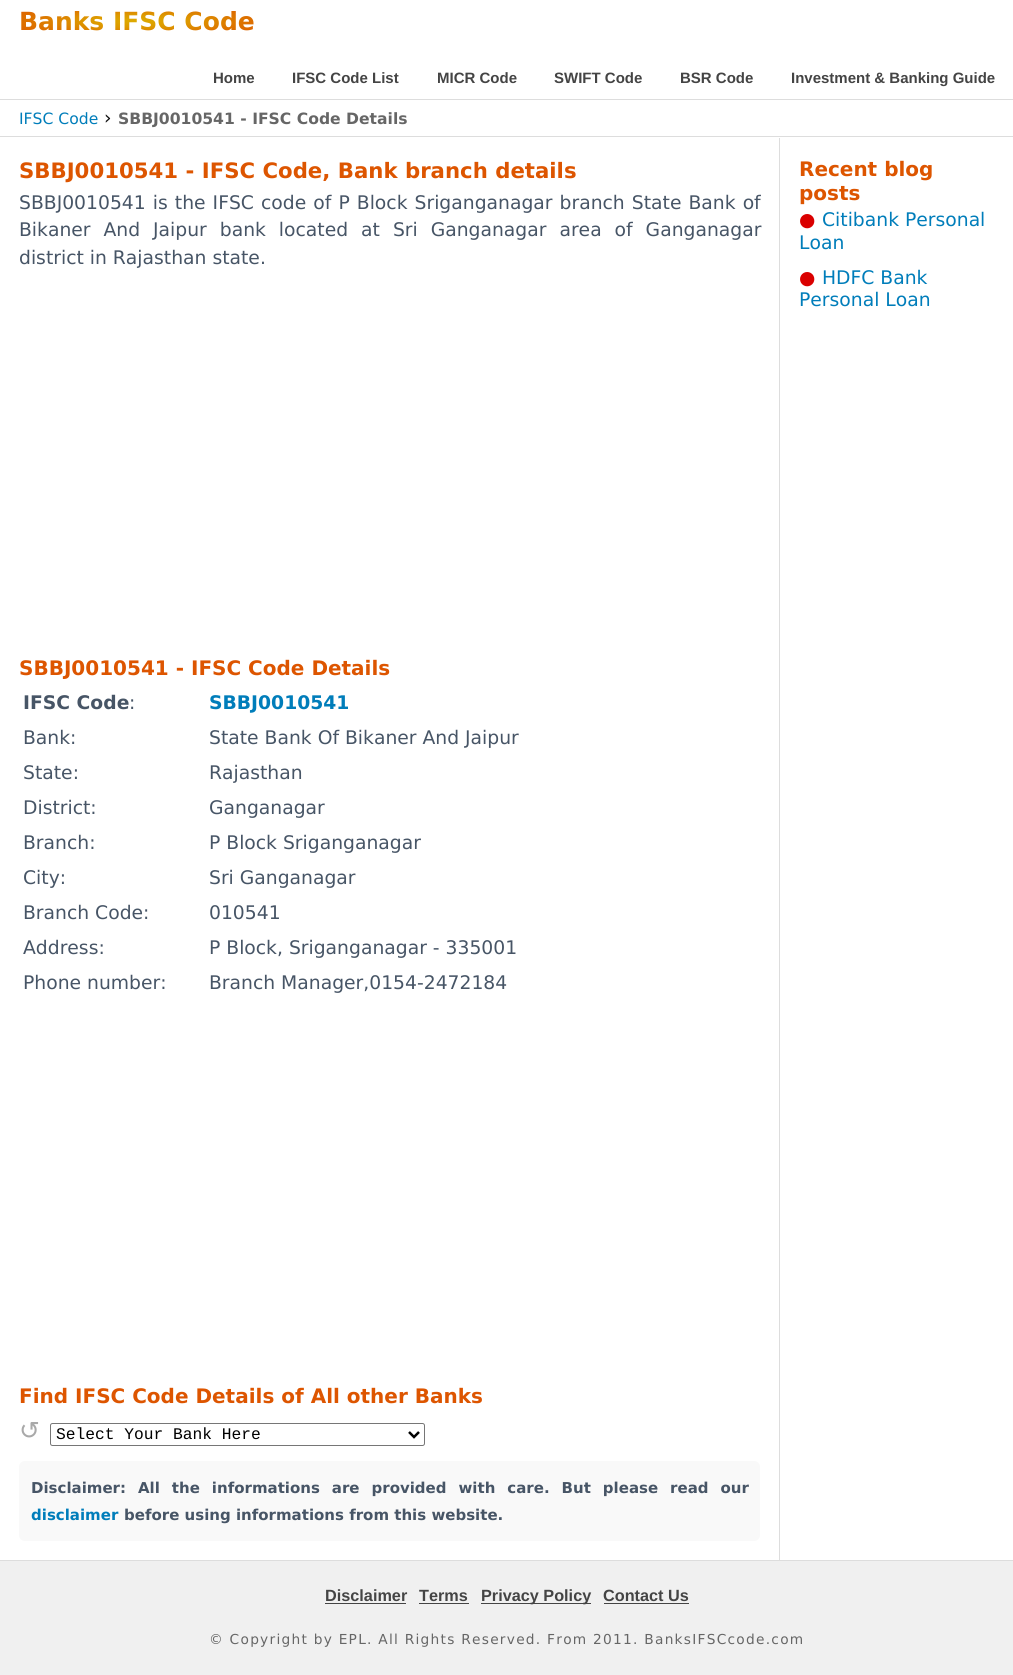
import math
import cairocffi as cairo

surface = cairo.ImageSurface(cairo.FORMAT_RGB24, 1013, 1675)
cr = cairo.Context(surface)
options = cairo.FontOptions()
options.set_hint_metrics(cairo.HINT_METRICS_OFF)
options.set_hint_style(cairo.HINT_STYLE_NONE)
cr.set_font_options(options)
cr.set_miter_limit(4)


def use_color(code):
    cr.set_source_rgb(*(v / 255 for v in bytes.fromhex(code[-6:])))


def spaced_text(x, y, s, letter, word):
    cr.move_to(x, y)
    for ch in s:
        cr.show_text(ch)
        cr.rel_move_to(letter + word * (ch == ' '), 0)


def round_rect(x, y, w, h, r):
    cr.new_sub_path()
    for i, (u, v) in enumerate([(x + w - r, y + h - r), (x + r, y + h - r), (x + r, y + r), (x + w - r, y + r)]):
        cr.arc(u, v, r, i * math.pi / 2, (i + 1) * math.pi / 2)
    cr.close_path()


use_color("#f0f0f0")
cr.paint()
use_color("#ffffff")
cr.rectangle(0, 0, 1013, 99)
cr.fill()
use_color("#dddddd")
cr.rectangle(0, 99, 1013, 1)
cr.fill()
cr.select_font_face("DejaVu Sans", cairo.FONT_SLANT_NORMAL, cairo.FONT_WEIGHT_BOLD)
cr.set_font_size(25)
gradient = cairo.RadialGradient(0, 0, 0, 0, 0, 1)
gradient.set_matrix(cairo.Matrix(1 / 333, 0, 0, 1 / 42, -1 * 137 / 333, -1 * 21 / 42))
gradient.add_color_stop_rgba(0, 0.867, 0.667, 0, 1)
gradient.add_color_stop_rgba(0.15, 0.867, 0.6, 0, 1)
gradient.add_color_stop_rgba(0.3, 0.867, 0.467, 0, 1)
gradient.add_color_stop_rgba(0.5, 0.867, 0.333, 0, 1)
gradient.add_color_stop_rgba(0.5, 0.867, 0.667, 0, 1)
gradient.add_color_stop_rgba(0.65, 0.867, 0.6, 0, 1)
gradient.add_color_stop_rgba(0.8, 0.867, 0.467, 0, 1)
gradient.add_color_stop_rgba(1, 0.867, 0.333, 0, 1)
cr.set_source(gradient)
cr.move_to(19, 30)
cr.show_text("Banks IFSC Code")
cr.select_font_face("Liberation Sans", cairo.FONT_SLANT_NORMAL, cairo.FONT_WEIGHT_BOLD)
cr.set_font_size(15)
use_color("#444444")
cr.move_to(213, 83)
cr.show_text("Home")
cr.move_to(292, 83)
cr.show_text("IFSC Code List")
cr.move_to(437, 83)
cr.show_text("MICR Code")
cr.move_to(554, 83)
cr.show_text("SWIFT Code")
cr.move_to(680, 83)
cr.show_text("BSR Code")
cr.move_to(791, 83)
cr.show_text("Investment & Banking Guide")
use_color("#ffffff")
cr.rectangle(0, 100, 1013, 1460)
cr.fill()
use_color("#dddddd")
cr.rectangle(0, 136, 1013, 1)
cr.fill()
cr.select_font_face("DejaVu Sans")
cr.set_font_size(15.6)
use_color("#007dba")
cr.move_to(19, 124)
cr.show_text("IFSC Code")
cr.set_font_size(18.75)
use_color("#111111")
cr.move_to(104, 124)
cr.show_text("›")
cr.select_font_face("DejaVu Sans", cairo.FONT_SLANT_NORMAL, cairo.FONT_WEIGHT_BOLD)
cr.set_font_size(15.6)
use_color("#666666")
cr.move_to(118, 124)
cr.show_text("SBBJ0010541 - IFSC Code Details")
use_color("#dddddd")
cr.rectangle(779, 138, 1, 1422)
cr.fill()
cr.set_font_size(21.25)
use_color("#dd5500")
cr.move_to(19, 178)
cr.show_text("SBBJ0010541 - IFSC Code, Bank branch details")
cr.select_font_face("DejaVu Sans")
cr.set_font_size(18.75)
use_color("#475566")
spaced_text(19, 209, "SBBJ0010541 is the IFSC code of P Block Sriganganagar branch State Bank of", 0, 1.1)
spaced_text(19, 236, "Bikaner And Jaipur bank located at Sri Ganganagar area of Ganganagar", 0, 7)
cr.move_to(19, 264)
cr.show_text("district in Rajasthan state.")
cr.select_font_face("DejaVu Sans", cairo.FONT_SLANT_NORMAL, cairo.FONT_WEIGHT_BOLD)
cr.set_font_size(20)
use_color("#dd5500")
cr.move_to(19, 675)
cr.show_text("SBBJ0010541 - IFSC Code Details")
cr.set_font_size(18.75)
use_color("#475566")
cr.move_to(23, 709)
cr.show_text("IFSC Code")
cr.select_font_face("DejaVu Sans")
cr.move_to(129, 709)
cr.show_text(":")
cr.select_font_face("DejaVu Sans", cairo.FONT_SLANT_NORMAL, cairo.FONT_WEIGHT_BOLD)
use_color("#007dba")
cr.move_to(209, 709)
cr.show_text("SBBJ0010541")
cr.select_font_face("DejaVu Sans")
use_color("#475566")
cr.move_to(23, 744)
cr.show_text("Bank:")
cr.move_to(209, 744)
cr.show_text("State Bank Of Bikaner And Jaipur")
cr.move_to(23, 779)
cr.show_text("State:")
cr.move_to(209, 779)
cr.show_text("Rajasthan")
cr.move_to(23, 814)
cr.show_text("District:")
cr.move_to(209, 814)
cr.show_text("Ganganagar")
cr.move_to(23, 849)
cr.show_text("Branch:")
cr.move_to(209, 849)
cr.show_text("P Block Sriganganagar")
cr.move_to(23, 884)
cr.show_text("City:")
cr.move_to(209, 884)
cr.show_text("Sri Ganganagar")
cr.move_to(23, 919)
cr.show_text("Branch Code:")
cr.move_to(209, 919)
cr.show_text("010541")
cr.move_to(23, 954)
cr.show_text("Address:")
cr.move_to(209, 954)
cr.show_text("P Block, Sriganganagar - 335001")
cr.move_to(23, 989)
cr.show_text("Phone number:")
cr.move_to(209, 989)
cr.show_text("Branch Manager,0154-2472184")
cr.select_font_face("DejaVu Sans", cairo.FONT_SLANT_NORMAL, cairo.FONT_WEIGHT_BOLD)
cr.set_font_size(20)
use_color("#dd5500")
cr.move_to(19, 1403)
cr.show_text("Find IFSC Code Details of All other Banks")
cr.select_font_face("DejaVu Sans")
cr.set_font_size(25)
use_color("#a9a9a9")
cr.move_to(19, 1439)
cr.show_text("↺")
round_rect(50.5, 1423.5, 374, 22, 2)
use_color("#767676")
cr.set_line_width(1)
cr.stroke()
cr.new_path()
cr.move_to(409, 1432)
cr.line_to(414, 1437)
cr.line_to(419, 1432)
use_color("#000000")
cr.set_line_width(2.5)
cr.stroke()
cr.select_font_face("Liberation Mono")
cr.set_font_size(16.25)
cr.move_to(56, 1439)
cr.show_text("Select Your Bank Here")
use_color("#f9f9f9")
round_rect(19, 1461, 741, 80, 6)
cr.fill()
cr.select_font_face("DejaVu Sans", cairo.FONT_SLANT_NORMAL, cairo.FONT_WEIGHT_BOLD)
cr.set_font_size(15)
use_color("#475566")
spaced_text(31, 1493, "Disclaimer: All the informations are provided with care. But please read our", 0, 6.75)
use_color("#007dba")
cr.move_to(31, 1520)
cr.show_text("disclaimer")
use_color("#475566")
cr.move_to(124, 1520)
cr.show_text("before using informations from this website.")
cr.set_font_size(20)
use_color("#dd5500")
cr.move_to(799, 176)
cr.show_text("Recent blog")
cr.move_to(799, 200)
cr.show_text("posts")
cr.select_font_face("DejaVu Sans")
cr.set_font_size(18.75)
use_color("#da0000")
cr.move_to(799, 226)
cr.show_text("●")
use_color("#007dba")
cr.move_to(822, 226)
cr.show_text("Citibank Personal")
cr.move_to(799, 249)
cr.show_text("Loan")
use_color("#da0000")
cr.move_to(799, 284)
cr.show_text("●")
use_color("#007dba")
cr.move_to(822, 284)
cr.show_text("HDFC Bank")
cr.move_to(799, 306)
cr.show_text("Personal Loan")
use_color("#dddddd")
cr.rectangle(0, 1560, 1013, 1)
cr.fill()
cr.select_font_face("Liberation Sans", cairo.FONT_SLANT_NORMAL, cairo.FONT_WEIGHT_BOLD)
cr.set_font_size(16.25)
use_color("#444444")
cr.move_to(325, 1601)
cr.show_text("Disclaimer")
cr.rectangle(325, 1603, 81, 1)
cr.fill()
cr.move_to(419, 1601)
cr.show_text("Terms")
cr.rectangle(419, 1603, 50, 1)
cr.fill()
cr.rectangle(481, 1603, 110, 1)
cr.fill()
cr.move_to(481, 1601)
cr.show_text("Privacy Policy")
cr.move_to(603, 1601)
cr.show_text("Contact Us")
cr.rectangle(604, 1603, 85, 1)
cr.fill()
cr.select_font_face("DejaVu Sans")
cr.set_font_size(13.75)
use_color("#666666")
spaced_text(209, 1644, "© Copyright by EPL. All Rights Reserved. From 2011. BanksIFSCcode.com", 1.25, 0)
surface.write_to_png("result.png")
